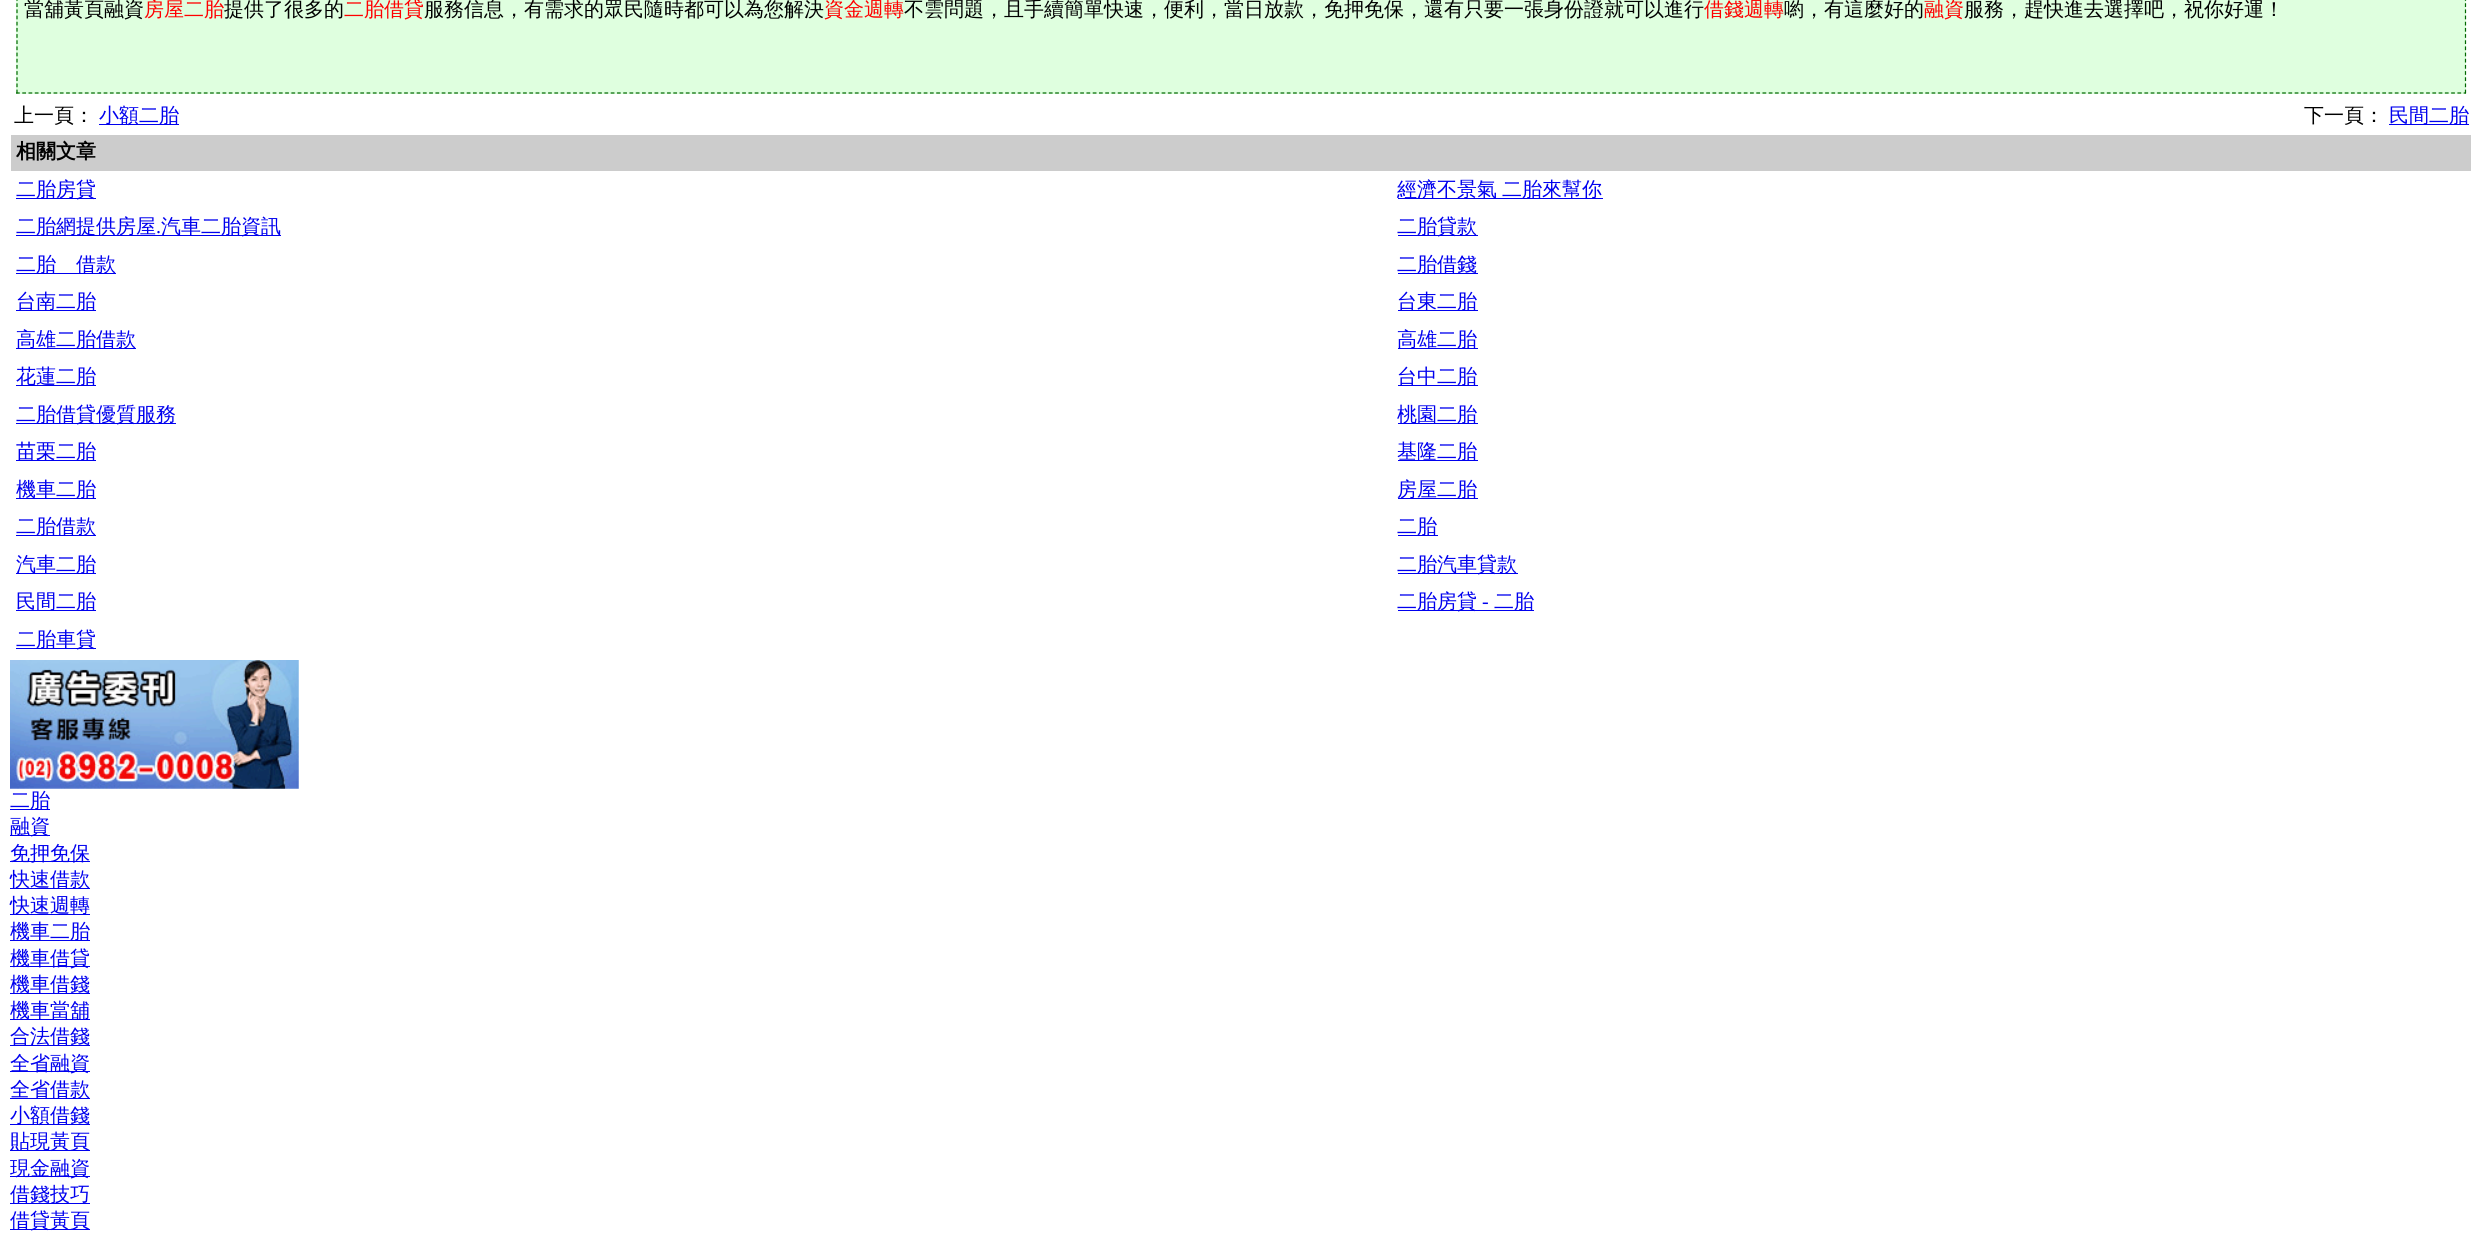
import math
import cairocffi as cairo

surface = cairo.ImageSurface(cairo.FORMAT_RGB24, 2482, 1233)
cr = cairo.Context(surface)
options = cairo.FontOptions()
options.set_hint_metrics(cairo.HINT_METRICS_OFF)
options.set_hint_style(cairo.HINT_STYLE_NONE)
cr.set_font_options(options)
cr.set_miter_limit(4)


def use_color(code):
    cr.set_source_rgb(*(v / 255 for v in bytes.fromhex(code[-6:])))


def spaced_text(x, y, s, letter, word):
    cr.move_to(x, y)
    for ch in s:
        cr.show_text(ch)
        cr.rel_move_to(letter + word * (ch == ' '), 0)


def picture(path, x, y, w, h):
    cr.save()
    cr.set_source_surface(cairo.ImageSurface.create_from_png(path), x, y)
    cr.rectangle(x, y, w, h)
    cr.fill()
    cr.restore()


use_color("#ffffff")
cr.paint()
use_color("#dfffdf")
cr.rectangle(16, 0, 2450, 94)
cr.fill()
cr.new_path()
cr.move_to(2465.5, -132.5)
cr.line_to(2465.5, 94)
use_color("#006600")
cr.set_line_width(1.2)
cr.set_dash([3.75, 2.42])
cr.stroke()
cr.new_path()
cr.move_to(16, 93)
cr.line_to(2466, 93)
cr.set_dash([3.75, 2.51])
cr.stroke()
cr.new_path()
cr.move_to(17, -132.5)
cr.line_to(17, 94)
cr.set_dash([3.75, 2.42])
cr.stroke()
cr.select_font_face("WenQuanYi Zen Hei Medium")
cr.set_font_size(20)
use_color("#000000")
cr.move_to(24, 16)
cr.show_text("當舖黃頁融資")
use_color("#ff0000")
cr.move_to(144, 16)
cr.show_text("房屋二胎")
use_color("#000000")
cr.move_to(224, 16)
cr.show_text("提供了很多的")
use_color("#ff0000")
cr.move_to(344, 16)
cr.show_text("二胎借貸")
use_color("#000000")
cr.move_to(424, 16)
cr.show_text("服務信息，有需求的眾民隨時都可以為您解決")
use_color("#ff0000")
cr.move_to(824, 16)
cr.show_text("資金週轉")
use_color("#000000")
cr.move_to(904, 16)
cr.show_text("不雲問題，且手續簡單快速，便利，當日放款，免押免保，還有只要一張身份證就可以進行")
use_color("#ff0000")
cr.move_to(1704, 16)
cr.show_text("借錢週轉")
use_color("#000000")
cr.move_to(1784, 16)
cr.show_text("喲，有這麼好的")
use_color("#ff0000")
cr.move_to(1924, 16)
cr.show_text("融資")
use_color("#000000")
cr.move_to(1964, 16)
cr.show_text("服務，趕快進去選擇吧，祝你好運！")
cr.move_to(14, 122)
cr.show_text("上一頁：")
use_color("#0000ee")
cr.rectangle(99, 124, 80, 1)
cr.fill()
cr.move_to(99, 122)
cr.show_text("小額二胎")
use_color("#000000")
cr.move_to(2304, 122)
cr.show_text("下一頁：")
use_color("#0000ee")
cr.rectangle(2389, 124, 80, 1)
cr.fill()
cr.move_to(2389, 122)
cr.show_text("民間二胎")
use_color("#cccccc")
cr.rectangle(11, 135, 2460, 36)
cr.fill()
cr.select_font_face("WenQuanYi Zen Hei", cairo.FONT_SLANT_NORMAL, cairo.FONT_WEIGHT_BOLD)
use_color("#000000")
cr.move_to(16, 158)
cr.show_text("相關文章")
use_color("#0000ee")
cr.rectangle(16, 198, 80, 1)
cr.fill()
cr.select_font_face("WenQuanYi Zen Hei Medium")
cr.move_to(16, 196)
cr.show_text("二胎房貸")
cr.rectangle(1398, 198, 205, 1)
cr.fill()
spaced_text(1397, 196, "經濟不景氣 二胎來幫你", 0, -1)
cr.rectangle(16, 235, 265, 1)
cr.fill()
cr.move_to(16, 233)
cr.show_text("二胎網提供房屋")
cr.select_font_face("Liberation Serif")
cr.move_to(156, 233)
cr.show_text(".")
cr.select_font_face("WenQuanYi Zen Hei Medium")
cr.move_to(161, 233)
cr.show_text("汽車二胎資訊")
cr.rectangle(1398, 235, 80, 1)
cr.fill()
cr.move_to(1397, 233)
cr.show_text("二胎貸款")
cr.rectangle(16, 273, 100, 1)
cr.fill()
cr.move_to(16, 271)
cr.show_text("二胎　借款")
cr.rectangle(1398, 273, 80, 1)
cr.fill()
cr.move_to(1397, 271)
cr.show_text("二胎借錢")
cr.rectangle(16, 310, 80, 1)
cr.fill()
cr.move_to(16, 308)
cr.show_text("台南二胎")
cr.rectangle(1398, 310, 80, 1)
cr.fill()
cr.move_to(1397, 308)
cr.show_text("台東二胎")
cr.rectangle(16, 348, 120, 1)
cr.fill()
cr.move_to(16, 346)
cr.show_text("高雄二胎借款")
cr.rectangle(1398, 348, 80, 1)
cr.fill()
cr.move_to(1397, 346)
cr.show_text("高雄二胎")
cr.rectangle(16, 385, 80, 1)
cr.fill()
cr.move_to(16, 383)
cr.show_text("花蓮二胎")
cr.rectangle(1398, 385, 80, 1)
cr.fill()
cr.move_to(1397, 383)
cr.show_text("台中二胎")
cr.rectangle(16, 423, 160, 1)
cr.fill()
cr.move_to(16, 421)
cr.show_text("二胎借貸優質服務")
cr.rectangle(1398, 423, 80, 1)
cr.fill()
cr.move_to(1397, 421)
cr.show_text("桃園二胎")
cr.rectangle(16, 460, 80, 1)
cr.fill()
cr.move_to(16, 458)
cr.show_text("苗栗二胎")
cr.rectangle(1398, 460, 80, 1)
cr.fill()
cr.move_to(1397, 458)
cr.show_text("基隆二胎")
cr.rectangle(16, 498, 80, 1)
cr.fill()
cr.move_to(16, 496)
cr.show_text("機車二胎")
cr.rectangle(1398, 498, 80, 1)
cr.fill()
cr.move_to(1397, 496)
cr.show_text("房屋二胎")
cr.rectangle(16, 535, 80, 1)
cr.fill()
cr.move_to(16, 533)
cr.show_text("二胎借款")
cr.rectangle(1398, 535, 40, 1)
cr.fill()
cr.move_to(1397, 533)
cr.show_text("二胎")
cr.rectangle(16, 573, 80, 1)
cr.fill()
cr.move_to(16, 571)
cr.show_text("汽車二胎")
cr.rectangle(1398, 573, 120, 1)
cr.fill()
cr.move_to(1397, 571)
cr.show_text("二胎汽車貸款")
cr.rectangle(16, 610, 80, 1)
cr.fill()
cr.move_to(16, 608)
cr.show_text("民間二胎")
cr.rectangle(1398, 610, 136, 1)
cr.fill()
cr.move_to(1397, 608)
cr.show_text("二胎房貸")
cr.select_font_face("Liberation Serif")
cr.move_to(1482, 608)
cr.show_text("-")
cr.select_font_face("WenQuanYi Zen Hei Medium")
cr.move_to(1494, 608)
cr.show_text("二胎")
cr.rectangle(16, 648, 80, 1)
cr.fill()
cr.move_to(16, 646)
cr.show_text("二胎車貸")
picture("img1.png", 10, 660, 289, 129)
cr.rectangle(10, 809, 40, 1)
cr.fill()
cr.move_to(10, 807)
cr.show_text("二胎")
cr.rectangle(10, 835, 40, 1)
cr.fill()
cr.move_to(10, 833)
cr.show_text("融資")
cr.rectangle(10, 861, 80, 1)
cr.fill()
cr.move_to(10, 860)
cr.show_text("免押免保")
cr.rectangle(10, 888, 80, 1)
cr.fill()
cr.move_to(10, 886)
cr.show_text("快速借款")
cr.rectangle(10, 914, 80, 1)
cr.fill()
cr.move_to(10, 912)
cr.show_text("快速週轉")
cr.rectangle(10, 940, 80, 1)
cr.fill()
cr.move_to(10, 938)
cr.show_text("機車二胎")
cr.rectangle(10, 966, 80, 1)
cr.fill()
cr.move_to(10, 965)
cr.show_text("機車借貸")
cr.rectangle(10, 993, 80, 1)
cr.fill()
cr.move_to(10, 991)
cr.show_text("機車借錢")
cr.rectangle(10, 1019, 80, 1)
cr.fill()
cr.move_to(10, 1017)
cr.show_text("機車當舖")
cr.rectangle(10, 1045, 80, 1)
cr.fill()
cr.move_to(10, 1043)
cr.show_text("合法借錢")
cr.rectangle(10, 1071, 80, 1)
cr.fill()
cr.move_to(10, 1070)
cr.show_text("全省融資")
cr.rectangle(10, 1098, 80, 1)
cr.fill()
cr.move_to(10, 1096)
cr.show_text("全省借款")
cr.rectangle(10, 1124, 80, 1)
cr.fill()
cr.move_to(10, 1122)
cr.show_text("小額借錢")
cr.rectangle(10, 1150, 80, 1)
cr.fill()
cr.move_to(10, 1148)
cr.show_text("貼現黃頁")
cr.rectangle(10, 1176, 80, 1)
cr.fill()
cr.move_to(10, 1175)
cr.show_text("現金融資")
cr.rectangle(10, 1203, 80, 1)
cr.fill()
cr.move_to(10, 1201)
cr.show_text("借錢技巧")
cr.rectangle(10, 1229, 80, 1)
cr.fill()
cr.move_to(10, 1227)
cr.show_text("借貸黃頁")
surface.write_to_png("result.png")
